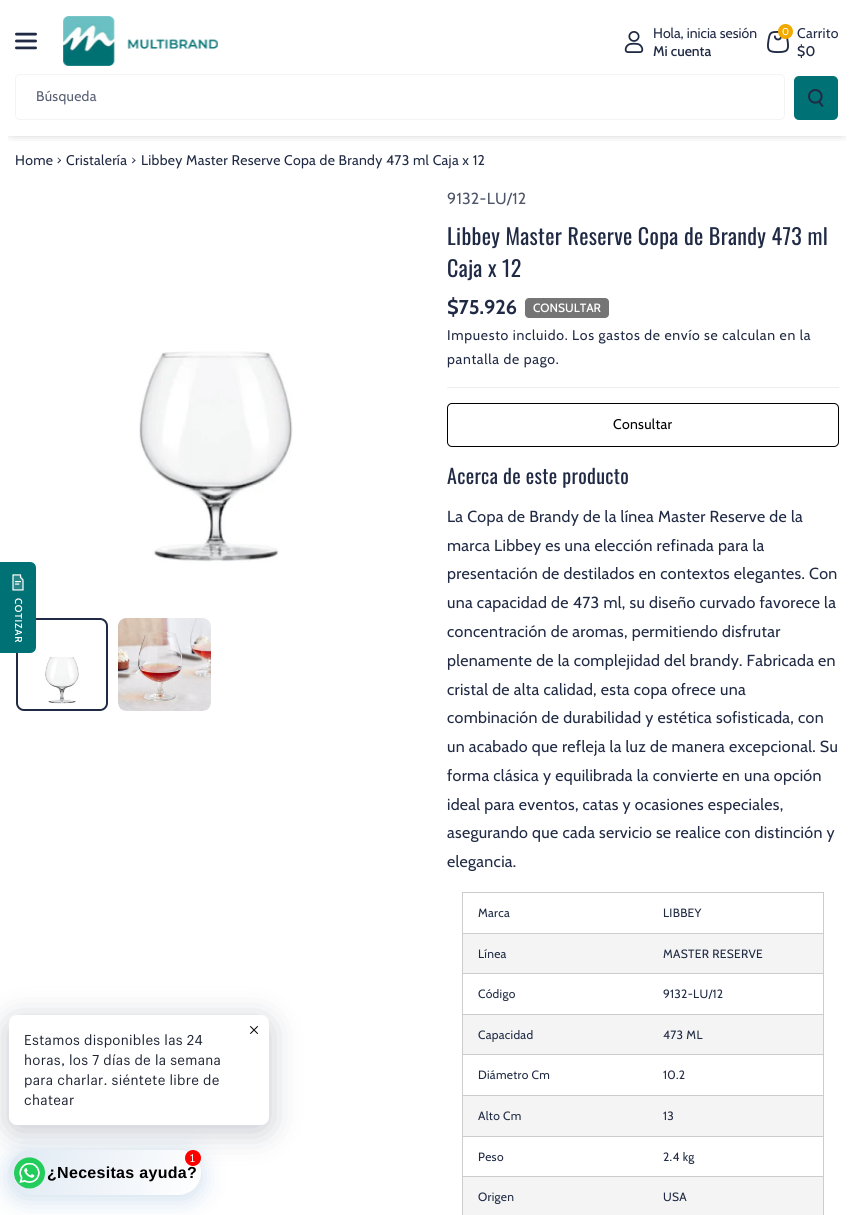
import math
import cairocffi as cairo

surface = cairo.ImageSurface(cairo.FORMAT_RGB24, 854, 1215)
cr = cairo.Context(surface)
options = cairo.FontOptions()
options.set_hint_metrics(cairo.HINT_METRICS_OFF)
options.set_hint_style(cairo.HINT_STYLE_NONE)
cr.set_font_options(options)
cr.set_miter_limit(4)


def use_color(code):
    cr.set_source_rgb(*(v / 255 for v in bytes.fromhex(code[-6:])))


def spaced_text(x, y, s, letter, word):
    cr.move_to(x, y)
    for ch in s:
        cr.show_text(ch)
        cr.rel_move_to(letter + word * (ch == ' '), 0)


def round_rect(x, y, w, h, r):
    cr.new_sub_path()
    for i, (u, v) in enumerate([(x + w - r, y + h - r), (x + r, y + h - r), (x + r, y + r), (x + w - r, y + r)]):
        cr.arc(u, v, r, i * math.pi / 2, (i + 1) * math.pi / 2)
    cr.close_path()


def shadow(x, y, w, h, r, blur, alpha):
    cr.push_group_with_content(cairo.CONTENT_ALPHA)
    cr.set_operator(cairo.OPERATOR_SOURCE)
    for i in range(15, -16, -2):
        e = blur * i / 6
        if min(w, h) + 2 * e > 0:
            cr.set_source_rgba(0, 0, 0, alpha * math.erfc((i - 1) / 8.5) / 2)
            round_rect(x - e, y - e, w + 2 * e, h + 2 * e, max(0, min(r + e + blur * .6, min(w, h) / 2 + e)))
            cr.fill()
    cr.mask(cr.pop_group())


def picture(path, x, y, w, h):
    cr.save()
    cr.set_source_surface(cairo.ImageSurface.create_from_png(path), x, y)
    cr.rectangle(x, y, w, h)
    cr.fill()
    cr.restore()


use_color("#ffffff")
cr.paint()
cr.save()
cr.rectangle(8, 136, 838, 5)
cr.clip()
use_color("#121212")
shadow(12, 18, 830, 112, 0, 6, 0.6)
cr.restore()
picture("img1.png", 15, 32, 22, 18)
picture("img2.png", 63, 16, 155, 50)
picture("img3.png", 624, 31, 20, 22)
cr.select_font_face("Cabin")
cr.set_font_size(14)
use_color("#202a44")
cr.move_to(653, 38)
cr.show_text("Hola, inicia sesión")
cr.select_font_face("Cabin Medium")
cr.move_to(653, 56)
cr.show_text("Mi cuenta")
picture("img4.png", 767, 31, 22, 22)
use_color("#f2a900")
cr.arc(785.5, 31.5, 7.5, 0, 2 * math.pi)
cr.fill()
cr.select_font_face("Cabin")
cr.set_font_size(10)
use_color("#ffffff")
spaced_text(782, 35, "0", 0.3, 0)
cr.set_font_size(14)
use_color("#202a44")
spaced_text(797, 38, "Carrito", 0.3, 0)
cr.select_font_face("Cabin Medium")
spaced_text(797, 56, "$0", 0.3, 0)
round_rect(15.5, 74.5, 769, 45, 4.5)
use_color("#f4f4f6")
cr.set_line_width(1)
cr.stroke()
cr.select_font_face("Cabin")
use_color("#585f73")
spaced_text(36, 101, "Búsqueda", 0.3, 0)
use_color("#007174")
round_rect(794, 76, 44, 44, 5)
cr.fill()
picture("img5.png", 808, 89, 16, 18)
use_color("#202a44")
spaced_text(15, 165, "Home", 0.3, 0)
cr.new_path()
cr.move_to(58, 157.5)
cr.line_to(61, 160.5)
cr.line_to(60.5, 161)
cr.line_to(57.5, 158)
cr.close_path()
cr.fill()
cr.new_path()
cr.move_to(60.5, 159.5)
cr.line_to(61, 160.5)
cr.line_to(58, 163.5)
cr.line_to(57.5, 162.5)
cr.close_path()
cr.fill()
spaced_text(66, 165, "Cristalería", 0.3, 0)
cr.new_path()
cr.move_to(132.5, 157.5)
cr.line_to(135.5, 160.5)
cr.line_to(135, 161)
cr.line_to(132, 158)
cr.close_path()
cr.fill()
cr.new_path()
cr.move_to(135, 159.5)
cr.line_to(135.5, 160.5)
cr.line_to(132.5, 163.5)
cr.line_to(132, 162.5)
cr.close_path()
cr.fill()
spaced_text(141, 165, "Libbey Master Reserve Copa de Brandy 473 ml Caja x 12", 0.3, 0)
round_rect(17, 619, 90, 91, 7)
cr.set_line_width(2)
cr.stroke()
picture("img8.png", 18, 620, 88, 89)
use_color("#007174")
cr.new_path()
cr.move_to(0, 562)
cr.line_to(30, 562)
cr.curve_to(33.5, 562, 36, 564.5, 36, 568)
cr.line_to(36, 647)
cr.curve_to(36, 650.5, 33.5, 653, 30, 653)
cr.line_to(0, 653)
cr.close_path()
cr.fill()
picture("img6.png", 12, 574, 12, 17)
cr.select_font_face("Cabin SemiBold")
cr.set_font_size(10)
use_color("#ffffff")
cr.save()
cr.translate(15, 598)
cr.rotate(90 * math.pi / 180)
spaced_text(0, 0, "COTIZAR", 0.75, 0)
cr.restore()
picture("img7.png", 139, 351, 154, 212)
picture("img9.png", 118, 618, 93, 93)
cr.select_font_face("Cabin")
cr.set_font_size(16)
use_color("#4d5569")
spaced_text(447, 204, "9132-LU/12", 0.3, 0)
cr.select_font_face("Oswald")
cr.set_font_size(22)
use_color("#202a44")
spaced_text(447, 245, "Libbey Master Reserve Copa de Brandy 473 ml", 0.3, 0)
spaced_text(447, 277, "Caja x 12", 0.3, 0)
use_color("#edeef0")
cr.rectangle(447, 387, 392, 1)
cr.fill()
cr.select_font_face("Cabin", cairo.FONT_SLANT_NORMAL, cairo.FONT_WEIGHT_BOLD)
cr.set_font_size(20)
use_color("#202a44")
cr.move_to(447, 314)
cr.show_text("$75.926")
use_color("#757575")
round_rect(525, 298, 84, 20, 4)
cr.fill()
cr.select_font_face("Cabin Medium")
cr.set_font_size(12)
use_color("#ffffff")
cr.move_to(533, 312)
cr.show_text("CONSULTAR")
cr.select_font_face("Cabin")
cr.set_font_size(14)
use_color("#202a44")
spaced_text(447, 340, "Impuesto incluido. Los gastos de envío", 0.7, 0)
spaced_text(704, 340, "se calculan en la", 0.7, 0)
spaced_text(447, 364, "pantalla de pago.", 0.7, 0)
round_rect(447.5, 403.5, 391, 43, 4.5)
use_color("#000000")
cr.set_line_width(1)
cr.stroke()
spaced_text(613, 429, "Consultar", 0.3, 0)
cr.select_font_face("Oswald")
cr.set_font_size(20)
use_color("#202a44")
spaced_text(447, 484, "Acerca de este producto", 0.3, 0)
cr.select_font_face("Cabin")
cr.set_font_size(16)
spaced_text(447, 522, "La Copa de Brandy de la línea Master Reserve de la", 0.3, 0)
spaced_text(447, 551, "marca Libbey es una elección refinada para la", 0.3, 0)
spaced_text(447, 579, "presentación de destilados en contextos elegantes. Con", 0.3, 0)
spaced_text(447, 608, "una capacidad de 473 ml, su diseño curvado favorece la", 0.3, 0)
spaced_text(447, 637, "concentración de aromas, permitiendo disfrutar", 0.3, 0)
spaced_text(447, 666, "plenamente de la complejidad del brandy. Fabricada en", 0.3, 0)
spaced_text(447, 695, "cristal de alta calidad, esta copa ofrece una", 0.3, 0)
spaced_text(447, 723, "combinación de durabilidad y estética sofisticada, con", 0.3, 0)
spaced_text(447, 752, "un acabado que refleja la luz de manera excepcional. Su", 0.3, 0)
spaced_text(447, 781, "forma clásica y equilibrada la convierte en una opción", 0.3, 0)
spaced_text(447, 810, "ideal para eventos, catas y ocasiones especiales,", 0.3, 0)
spaced_text(447, 838, "asegurando que cada servicio se realice con distinción y", 0.3, 0)
spaced_text(447, 867, "elegancia.", 0.3, 0)
use_color("#cccccc")
cr.rectangle(462, 892, 362, 1)
cr.fill()
cr.rectangle(823, 892, 1, 323)
cr.fill()
cr.rectangle(462, 892, 1, 323)
cr.fill()
cr.set_font_size(12)
use_color("#202a44")
spaced_text(478, 917, "Marca", 0.3, 0)
use_color("#cccccc")
cr.rectangle(462, 933, 362, 1)
cr.fill()
use_color("#202a44")
spaced_text(663, 917, "LIBBEY", 0.3, 0)
use_color("#f3f4f3")
cr.rectangle(463, 934, 360, 39)
cr.fill()
use_color("#202a44")
spaced_text(478, 958, "Línea", 0.3, 0)
use_color("#cccccc")
cr.rectangle(462, 973, 362, 1)
cr.fill()
use_color("#202a44")
spaced_text(663, 958, "MASTER RESERVE", 0.3, 0)
spaced_text(478, 998, "Código", 0.3, 0)
use_color("#cccccc")
cr.rectangle(462, 1014, 362, 1)
cr.fill()
use_color("#202a44")
spaced_text(663, 998, "9132-LU/12", 0.3, 0)
use_color("#f3f4f3")
cr.rectangle(463, 1015, 360, 39)
cr.fill()
use_color("#202a44")
spaced_text(478, 1039, "Capacidad", 0.3, 0)
use_color("#cccccc")
cr.rectangle(462, 1054, 362, 1)
cr.fill()
use_color("#202a44")
spaced_text(663, 1039, "473 ML", 0.3, 0)
spaced_text(478, 1079, "Diámetro Cm", 0.3, 0)
use_color("#cccccc")
cr.rectangle(462, 1095, 362, 1)
cr.fill()
use_color("#202a44")
spaced_text(663, 1079, "10.2", 0.3, 0)
use_color("#f3f4f3")
cr.rectangle(463, 1096, 360, 40)
cr.fill()
use_color("#202a44")
spaced_text(478, 1120, "Alto Cm", 0.3, 0)
use_color("#cccccc")
cr.rectangle(462, 1136, 362, 1)
cr.fill()
use_color("#202a44")
spaced_text(663, 1120, "13", 0.3, 0)
spaced_text(478, 1161, "Peso", 0.3, 0)
use_color("#cccccc")
cr.rectangle(462, 1176, 362, 1)
cr.fill()
use_color("#202a44")
spaced_text(663, 1161, "2.4 kg", 0.3, 0)
use_color("#f3f4f3")
cr.rectangle(463, 1177, 360, 38)
cr.fill()
use_color("#202a44")
spaced_text(478, 1201, "Origen", 0.3, 0)
spaced_text(663, 1201, "USA", 0.3, 0)
use_color("#00122e")
shadow(9, 1021, 260, 110, 8, 16, 0.24)
use_color("#ffffff")
round_rect(9, 1015, 260, 110, 8)
cr.fill()
picture("img10.png", 250, 1026, 8, 8)
cr.select_font_face("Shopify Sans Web")
cr.set_font_size(14)
use_color("#1e2433")
spaced_text(24, 1045, "Estamos disponibles las 24", 0.3, 0)
spaced_text(24, 1065, "horas, los 7 días de la semana", 0.3, 0)
spaced_text(24, 1085, "para charlar. siéntete libre de", 0.3, 0)
spaced_text(24, 1105, "chatear", 0.3, 0)
use_color("#9fbedd")
shadow(9, 1154, 192, 45, 22.5, 12, 0.5)
gradient = cairo.LinearGradient(18, 1132, 192, 1213)
gradient.add_color_stop_rgba(0, 0.875, 0.914, 0.953, 1)
gradient.add_color_stop_rgba(1, 1, 1, 1, 1)
cr.set_source(gradient)
round_rect(9, 1150, 192, 45, 22.5)
cr.fill()
picture("img11.png", 14, 1157, 31, 32)
use_color("#ff0000")
cr.arc(193, 1158, 8, 0, 2 * math.pi)
cr.fill()
cr.set_font_size(11)
use_color("#ffffff")
spaced_text(190, 1162, "1", 0.3, 0)
cr.select_font_face("Liberation Sans", cairo.FONT_SLANT_NORMAL, cairo.FONT_WEIGHT_BOLD)
cr.set_font_size(16)
use_color("#000000")
spaced_text(47, 1178, "¿Necesitas ayuda?", 0.3, 0)
surface.write_to_png("result.png")
